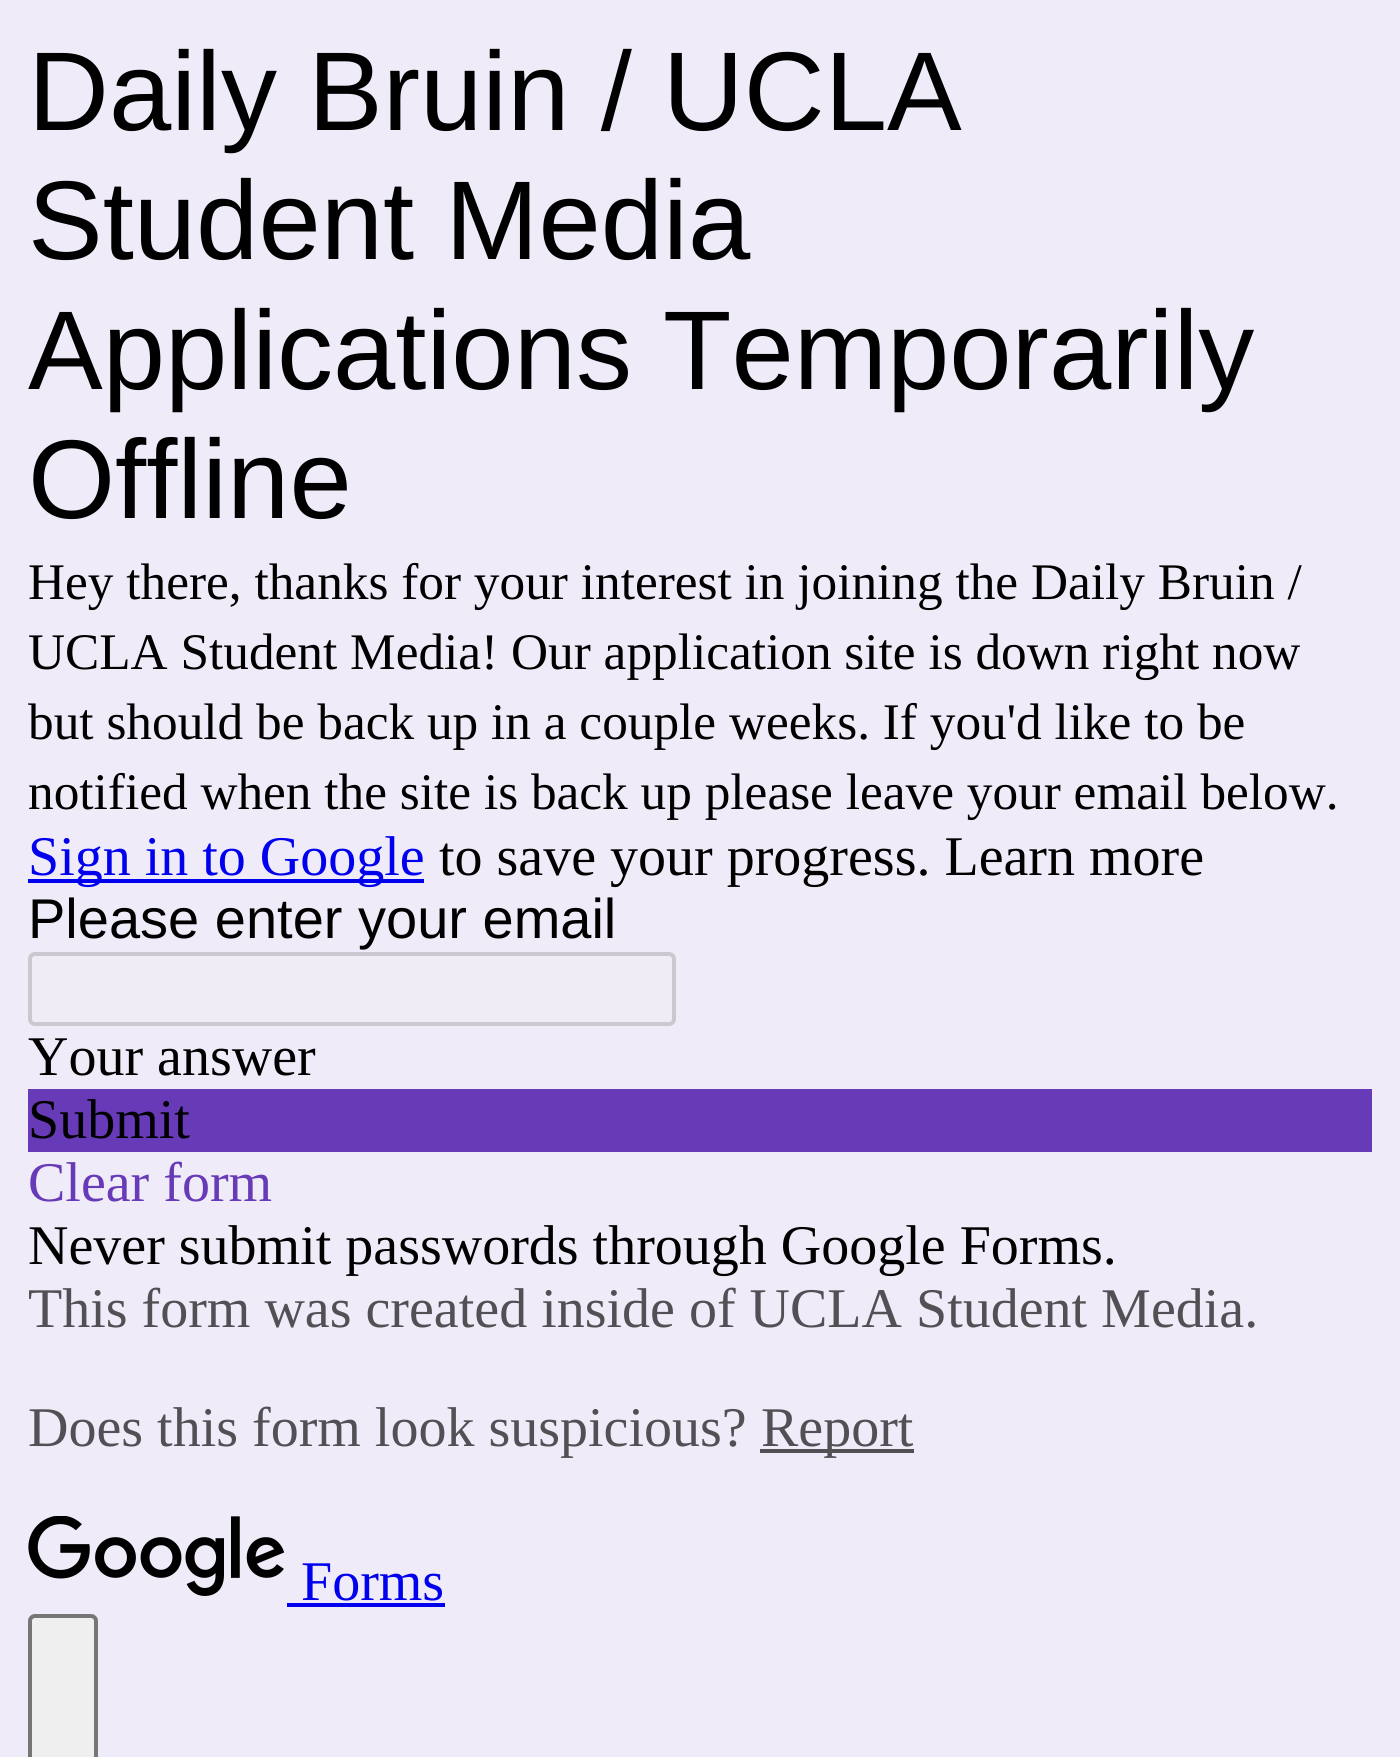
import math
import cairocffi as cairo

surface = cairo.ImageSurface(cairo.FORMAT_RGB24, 1400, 1757)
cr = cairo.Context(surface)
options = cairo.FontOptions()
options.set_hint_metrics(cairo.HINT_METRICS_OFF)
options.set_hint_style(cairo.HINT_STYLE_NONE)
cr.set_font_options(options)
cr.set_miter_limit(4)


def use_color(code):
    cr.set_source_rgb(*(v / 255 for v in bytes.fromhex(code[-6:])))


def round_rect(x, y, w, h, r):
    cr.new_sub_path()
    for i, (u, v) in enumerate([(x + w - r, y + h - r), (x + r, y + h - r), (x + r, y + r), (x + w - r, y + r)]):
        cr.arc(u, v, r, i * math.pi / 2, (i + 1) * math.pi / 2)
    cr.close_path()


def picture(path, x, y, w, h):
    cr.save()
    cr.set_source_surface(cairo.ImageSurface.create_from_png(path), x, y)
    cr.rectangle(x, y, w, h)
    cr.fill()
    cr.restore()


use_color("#f0ebf8")
cr.paint()
cr.select_font_face("Liberation Sans")
cr.set_font_size(112)
use_color("#000000")
cr.move_to(28, 130)
cr.show_text("Daily Bruin / UCLA")
cr.move_to(28, 259)
cr.show_text("Student Media")
cr.move_to(28, 389)
cr.show_text("Applications Temporarily")
cr.move_to(28, 518)
cr.show_text("Offline")
cr.select_font_face("Liberation Serif")
cr.set_font_size(51.3)
cr.move_to(28, 599)
cr.show_text("Hey there, thanks for your interest in joining the Daily Bruin /")
cr.move_to(28, 669)
cr.show_text("UCLA Student Media! Our application site is down right now")
cr.move_to(28, 739)
cr.show_text("but should be back up in a couple weeks. If you'd like to be")
cr.move_to(28, 809)
cr.show_text("notified when the site is back up please leave your email below.")
use_color("#0000ee")
cr.rectangle(28, 879, 396, 4)
cr.fill()
cr.set_font_size(56)
cr.move_to(28, 875)
cr.show_text("Sign in to Google")
use_color("#000000")
cr.move_to(439, 875)
cr.show_text("to save your progress. Learn more")
cr.select_font_face("Liberation Sans")
cr.move_to(28, 938)
cr.show_text("Please enter your email")
use_color("#f0ecf5")
round_rect(30, 954, 644, 70, 5)
cr.fill_preserve()
use_color("#cbc9cf")
cr.set_line_width(4)
cr.stroke()
cr.select_font_face("Liberation Serif")
use_color("#000000")
cr.move_to(28, 1075)
cr.show_text("Your answer")
use_color("#673ab7")
cr.rectangle(28, 1089, 1344, 63)
cr.fill()
use_color("#000000")
cr.move_to(28, 1138)
cr.show_text("Submit")
use_color("#673ab7")
cr.move_to(28, 1201)
cr.show_text("Clear form")
use_color("#000000")
cr.move_to(28, 1264)
cr.show_text("Never submit passwords through Google Forms.")
use_color("#525054")
cr.move_to(28, 1327)
cr.show_text("This form was created inside of UCLA Student Media.")
cr.move_to(28, 1446)
cr.show_text("Does this form look suspicious?")
cr.rectangle(760, 1449, 154, 4)
cr.fill()
cr.move_to(761, 1446)
cr.show_text("Report")
picture("img1.png", 28, 1516, 257, 80)
use_color("#0000ee")
cr.move_to(301, 1600)
cr.show_text("Forms")
cr.rectangle(287, 1603, 158, 4)
cr.fill()
use_color("#efefef")
round_rect(30, 1616, 66, 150, 5)
cr.fill_preserve()
use_color("#767676")
cr.stroke()
surface.write_to_png("result.png")
